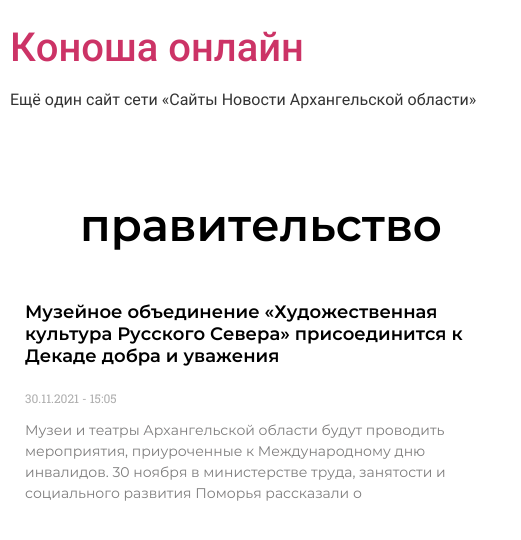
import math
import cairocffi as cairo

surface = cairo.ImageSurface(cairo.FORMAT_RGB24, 521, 540)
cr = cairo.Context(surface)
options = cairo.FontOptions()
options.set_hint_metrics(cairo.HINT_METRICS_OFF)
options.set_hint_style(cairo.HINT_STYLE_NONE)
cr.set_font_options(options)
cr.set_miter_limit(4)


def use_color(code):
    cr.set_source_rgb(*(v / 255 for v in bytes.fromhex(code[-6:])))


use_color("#ffffff")
cr.paint()
cr.select_font_face("Roboto Medium")
cr.set_font_size(40)
use_color("#cc3366")
cr.move_to(10, 61)
cr.show_text("Коноша онлайн")
cr.select_font_face("Roboto")
cr.set_font_size(16)
use_color("#333333")
cr.move_to(10, 105)
cr.show_text("Ещё один сайт сети «Сайты Новости Архангельской области»")
cr.select_font_face("Montserrat SemiBold")
cr.set_font_size(45)
use_color("#000000")
cr.move_to(80, 241)
cr.show_text("правительство")
cr.set_font_size(18)
cr.move_to(25, 318)
cr.show_text("Музейное объединение «Художественная")
cr.move_to(25, 340)
cr.show_text("культура Русского Севера» присоединится к")
cr.move_to(25, 362)
cr.show_text("Декаде добра и уважения")
cr.select_font_face("Roboto Slab")
cr.set_font_size(12)
use_color("#adadad")
cr.move_to(25, 403)
cr.show_text("30.11.2021 - 15:05")
cr.select_font_face("Montserrat")
cr.set_font_size(14)
use_color("#7e7d7d")
cr.move_to(25, 435)
cr.show_text("Музеи и театры Архангельской области будут проводить")
cr.move_to(25, 456)
cr.show_text("мероприятия, приуроченные к Международному дню")
cr.move_to(25, 477)
cr.show_text("инвалидов. 30 ноября в министерстве труда, занятости и")
cr.move_to(25, 498)
cr.show_text("социального развития Поморья рассказали о")
surface.write_to_png("result.png")
